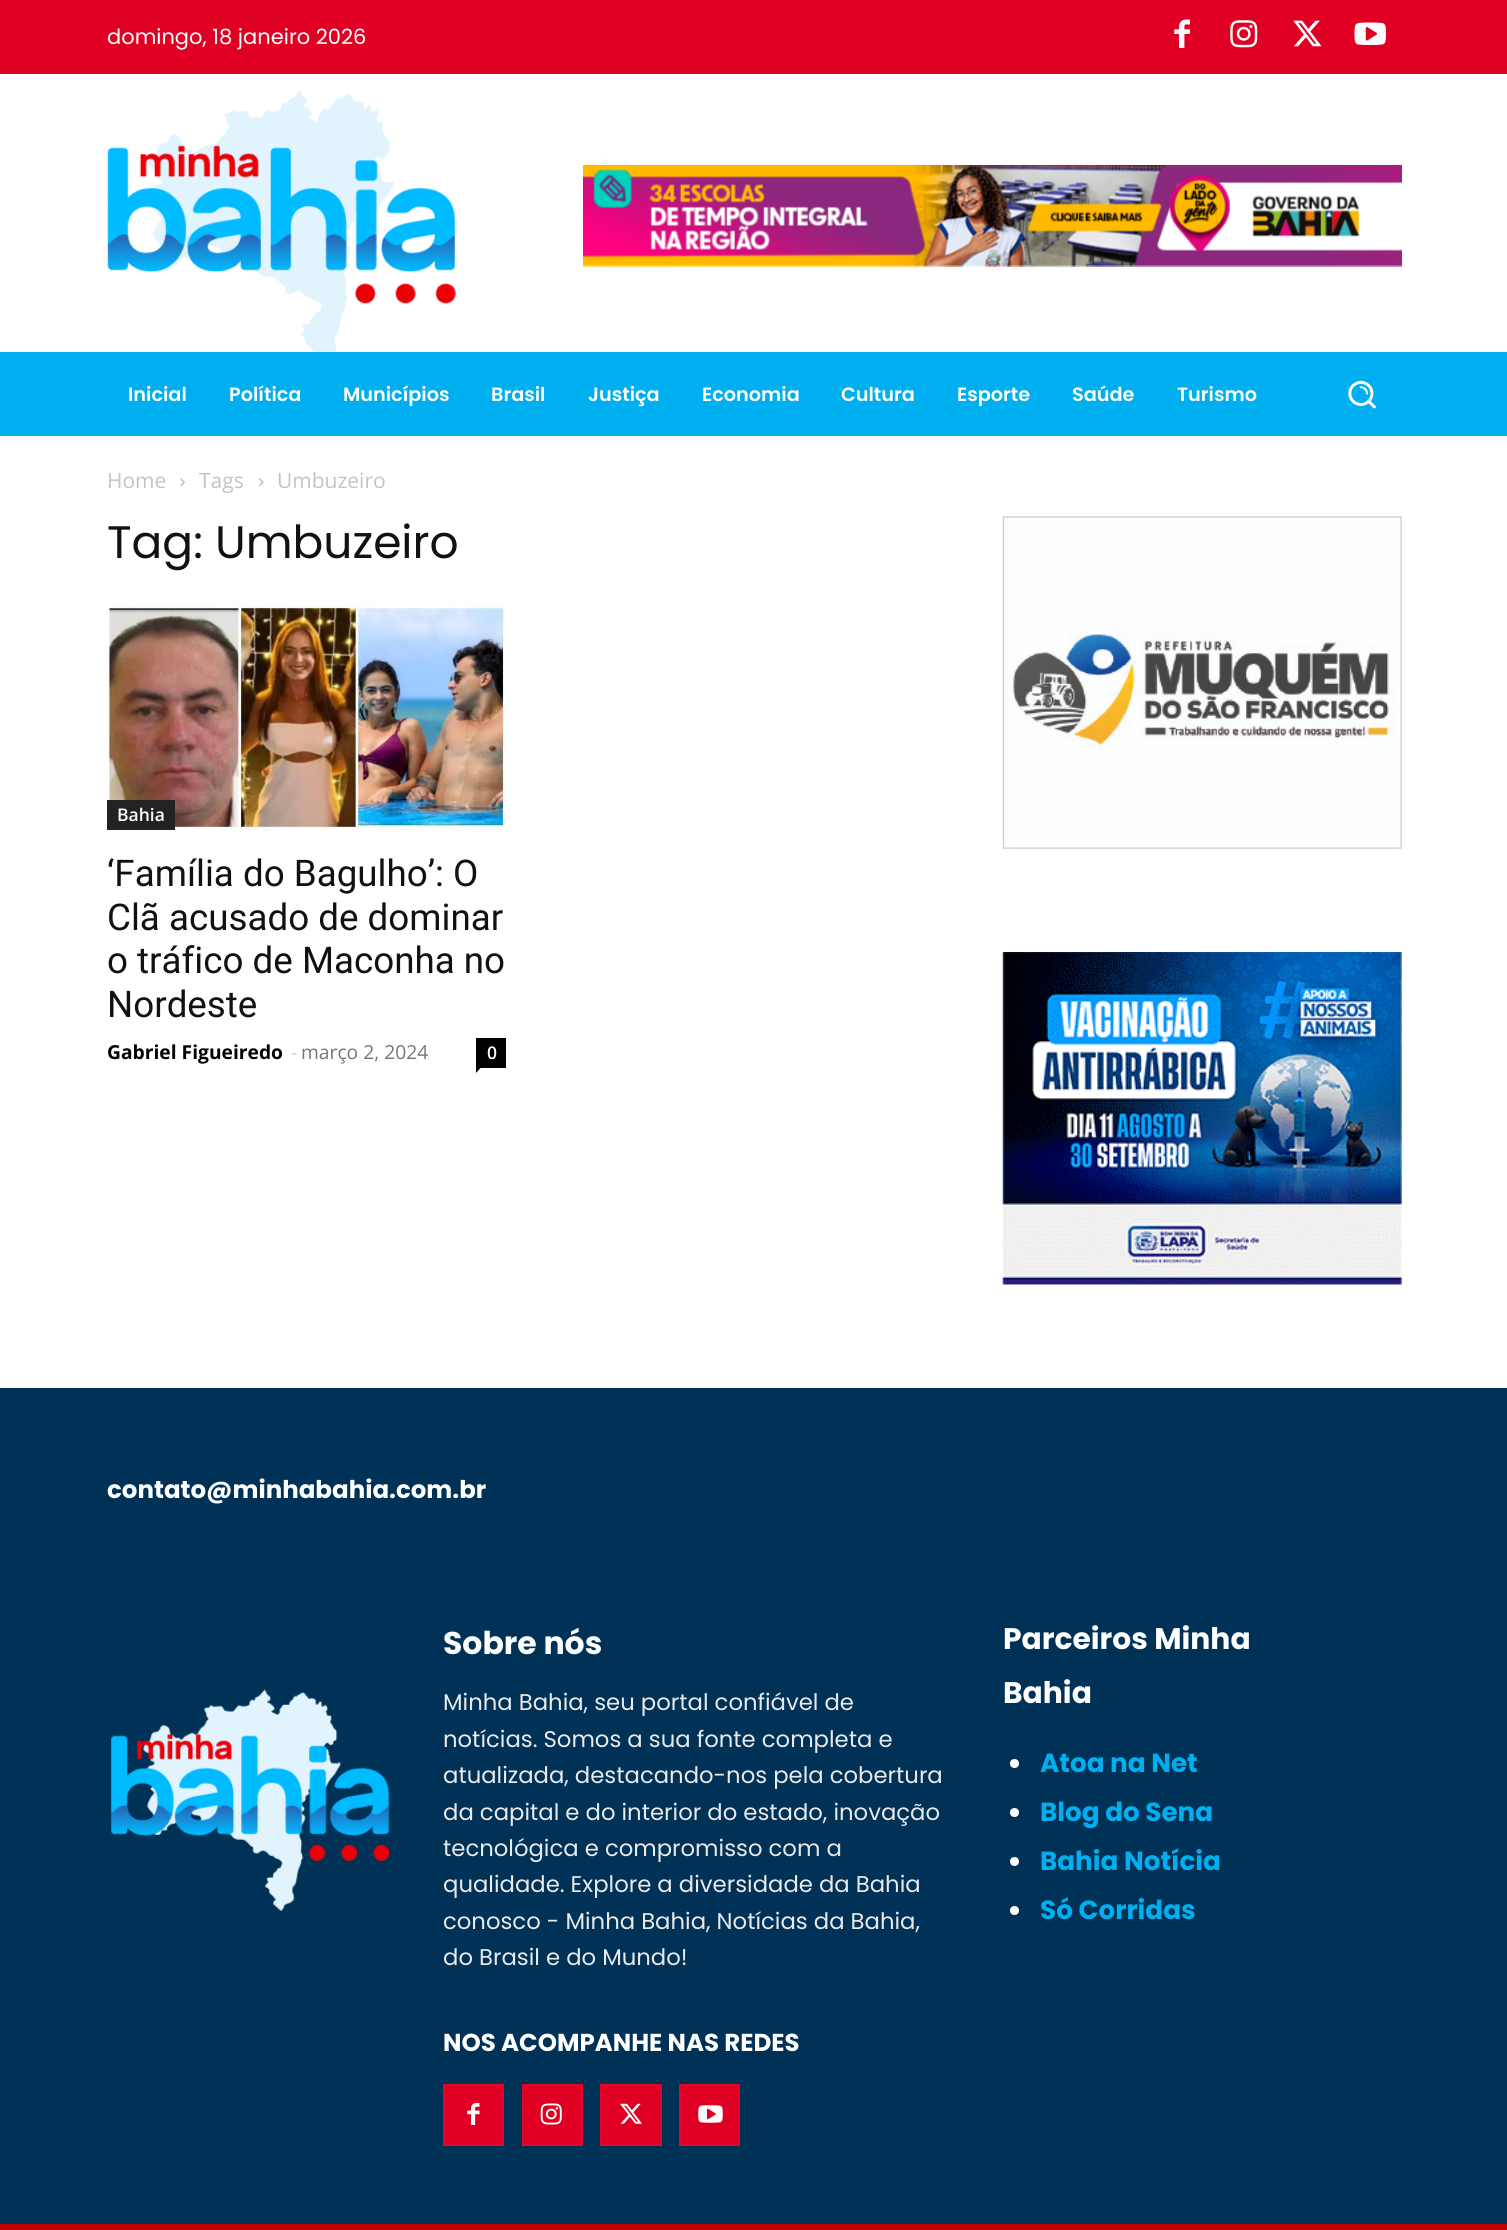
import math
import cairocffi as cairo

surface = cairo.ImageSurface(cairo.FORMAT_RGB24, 1507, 2230)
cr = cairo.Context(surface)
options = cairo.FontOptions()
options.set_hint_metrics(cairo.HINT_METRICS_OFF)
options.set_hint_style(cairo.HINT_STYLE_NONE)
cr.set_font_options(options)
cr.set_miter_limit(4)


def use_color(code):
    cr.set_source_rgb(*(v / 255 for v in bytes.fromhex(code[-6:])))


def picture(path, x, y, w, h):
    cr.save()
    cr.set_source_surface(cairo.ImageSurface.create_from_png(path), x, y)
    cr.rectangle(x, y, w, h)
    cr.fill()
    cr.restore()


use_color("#ffffff")
cr.paint()
use_color("#e00023")
cr.rectangle(0, 0, 1507, 74)
cr.fill()
cr.select_font_face("Poppins")
cr.set_font_size(21)
use_color("#ffffff")
cr.move_to(107, 44)
cr.show_text("domingo, 18 janeiro 2026")
picture("img1.png", 1174, 19, 16, 29)
picture("img2.png", 1230, 20, 28, 28)
picture("img3.png", 1293, 20, 29, 27)
picture("img4.png", 1354, 22, 32, 23)
picture("img5.png", 107, 90, 349, 262)
picture("img6.png", 583, 165, 819, 102)
use_color("#00afef")
cr.rectangle(0, 352, 1507, 84)
cr.fill()
cr.select_font_face("Poppins SemiBold")
cr.set_font_size(19.25)
use_color("#ffffff")
cr.move_to(128, 401)
cr.show_text("Inicial")
cr.move_to(229, 401)
cr.show_text("Política")
cr.move_to(343, 401)
cr.show_text("Municípios")
cr.move_to(491, 401)
cr.show_text("Brasil")
cr.move_to(588, 401)
cr.show_text("Justiça")
cr.move_to(702, 401)
cr.show_text("Economia")
cr.move_to(841, 401)
cr.show_text("Cultura")
cr.move_to(957, 401)
cr.show_text("Esporte")
cr.move_to(1072, 401)
cr.show_text("Saúde")
cr.move_to(1177, 401)
cr.show_text("Turismo")
picture("img7.png", 1348, 380, 28, 29)
cr.select_font_face("Open Sans")
cr.set_font_size(21)
use_color("#c3c3c3")
cr.move_to(107, 488)
cr.show_text("Home")
picture("img8.png", 180, 478, 5, 9)
cr.move_to(199, 488)
cr.show_text("Tags")
picture("img9.png", 259, 478, 5, 9)
cr.move_to(277, 488)
cr.show_text("Umbuzeiro")
cr.select_font_face("Poppins")
cr.set_font_size(45.5)
use_color("#111111")
cr.move_to(107, 558)
cr.show_text("Tag: Umbuzeiro")
picture("img10.png", 107, 605, 399, 225)
use_color("#222222")
cr.rectangle(107, 800, 68, 30)
cr.fill()
cr.select_font_face("Open Sans SemiBold")
cr.set_font_size(17.5)
use_color("#ffffff")
cr.move_to(117, 821)
cr.show_text("Bahia")
cr.select_font_face("Roboto")
cr.set_font_size(36.75)
use_color("#111111")
cr.move_to(107, 886)
cr.show_text("‘Família do Bagulho’: O")
cr.move_to(107, 930)
cr.show_text("Clã acusado de dominar")
cr.move_to(107, 973)
cr.show_text("o tráfico de Maconha no")
cr.move_to(107, 1017)
cr.show_text("Nordeste")
cr.select_font_face("Open Sans", cairo.FONT_SLANT_NORMAL, cairo.FONT_WEIGHT_BOLD)
cr.set_font_size(19.25)
use_color("#000000")
cr.move_to(107, 1059)
cr.show_text("Gabriel Figueiredo")
cr.select_font_face("Open Sans")
use_color("#cccccc")
cr.move_to(291, 1059)
cr.show_text("-")
use_color("#767676")
cr.move_to(301, 1059)
cr.show_text("março 2, 2024")
use_color("#000000")
cr.rectangle(476, 1038, 30, 30)
cr.fill()
cr.select_font_face("Open Sans SemiBold")
cr.set_font_size(17.5)
use_color("#ffffff")
cr.move_to(487, 1059)
cr.show_text("0")
use_color("#000000")
cr.new_path()
cr.move_to(476, 1067.5)
cr.line_to(481, 1067.5)
cr.line_to(476, 1073)
cr.close_path()
cr.fill()
picture("img11.png", 1002, 516, 400, 333)
picture("img12.png", 1002, 952, 400, 333)
use_color("#003157")
cr.rectangle(0, 1388, 1507, 836)
cr.fill()
cr.select_font_face("Poppins", cairo.FONT_SLANT_NORMAL, cairo.FONT_WEIGHT_BOLD)
cr.set_font_size(24.5)
use_color("#ffffff")
cr.move_to(107, 1498)
cr.show_text("contato@minhabahia.com.br")
picture("img13.png", 110, 1689, 280, 222)
cr.set_font_size(31.5)
cr.move_to(443, 1654)
cr.show_text("Sobre nós")
cr.select_font_face("Poppins")
cr.set_font_size(22.75)
use_color("#eaeaea")
cr.move_to(443, 1710)
cr.show_text("Minha Bahia, seu portal confiável de")
cr.move_to(443, 1747)
cr.show_text("notícias. Somos a sua fonte completa e")
cr.move_to(443, 1783)
cr.show_text("atualizada, destacando-nos pela cobertura")
cr.move_to(443, 1820)
cr.show_text("da capital e do interior do estado, inovação")
cr.move_to(443, 1856)
cr.show_text("tecnológica e compromisso com a")
cr.move_to(443, 1892)
cr.show_text("qualidade. Explore a diversidade da Bahia")
cr.move_to(443, 1929)
cr.show_text("conosco - Minha Bahia, Notícias da Bahia,")
cr.move_to(443, 1965)
cr.show_text("do Brasil e do Mundo!")
cr.select_font_face("Poppins", cairo.FONT_SLANT_NORMAL, cairo.FONT_WEIGHT_BOLD)
cr.set_font_size(24.5)
use_color("#ffffff")
cr.move_to(443, 2051)
cr.show_text("NOS ACOMPANHE NAS REDES")
use_color("#e00023")
cr.rectangle(444, 2085, 59, 60)
cr.fill_preserve()
use_color("#e1082a")
cr.stroke()
picture("img14.png", 467, 2103, 13, 22)
use_color("#e00023")
cr.rectangle(523, 2085, 59, 60)
cr.fill_preserve()
use_color("#e1082a")
cr.stroke()
picture("img15.png", 540, 2103, 22, 22)
use_color("#e00023")
cr.rectangle(601, 2085, 60, 60)
cr.fill_preserve()
use_color("#e1082a")
cr.stroke()
picture("img16.png", 620, 2103, 22, 21)
use_color("#e00023")
cr.rectangle(680, 2085, 59, 60)
cr.fill_preserve()
use_color("#e1082a")
cr.stroke()
picture("img17.png", 698, 2105, 25, 18)
cr.set_font_size(29.75)
use_color("#ffffff")
cr.move_to(1003, 1649)
cr.show_text("Parceiros Minha")
cr.move_to(1003, 1703)
cr.show_text("Bahia")
cr.new_path()
cr.arc(1014.5, 1763.5, 4.5, 0, 2 * math.pi)
cr.fill()
cr.set_font_size(26.25)
use_color("#00afef")
cr.move_to(1040, 1772)
cr.show_text("Atoa na Net")
use_color("#ffffff")
cr.new_path()
cr.arc(1014.5, 1812.5, 4.5, 0, 2 * math.pi)
cr.fill()
use_color("#00afef")
cr.move_to(1040, 1821)
cr.show_text("Blog do Sena")
use_color("#ffffff")
cr.new_path()
cr.arc(1014.5, 1861.5, 4.5, 0, 2 * math.pi)
cr.fill()
use_color("#00afef")
cr.move_to(1040, 1870)
cr.show_text("Bahia Notícia")
use_color("#ffffff")
cr.new_path()
cr.arc(1014.5, 1910.5, 4.5, 0, 2 * math.pi)
cr.fill()
use_color("#00afef")
cr.move_to(1040, 1919)
cr.show_text("Só Corridas")
use_color("#c10000")
cr.rectangle(0, 2224, 1507, 6)
cr.fill()
surface.write_to_png("result.png")
